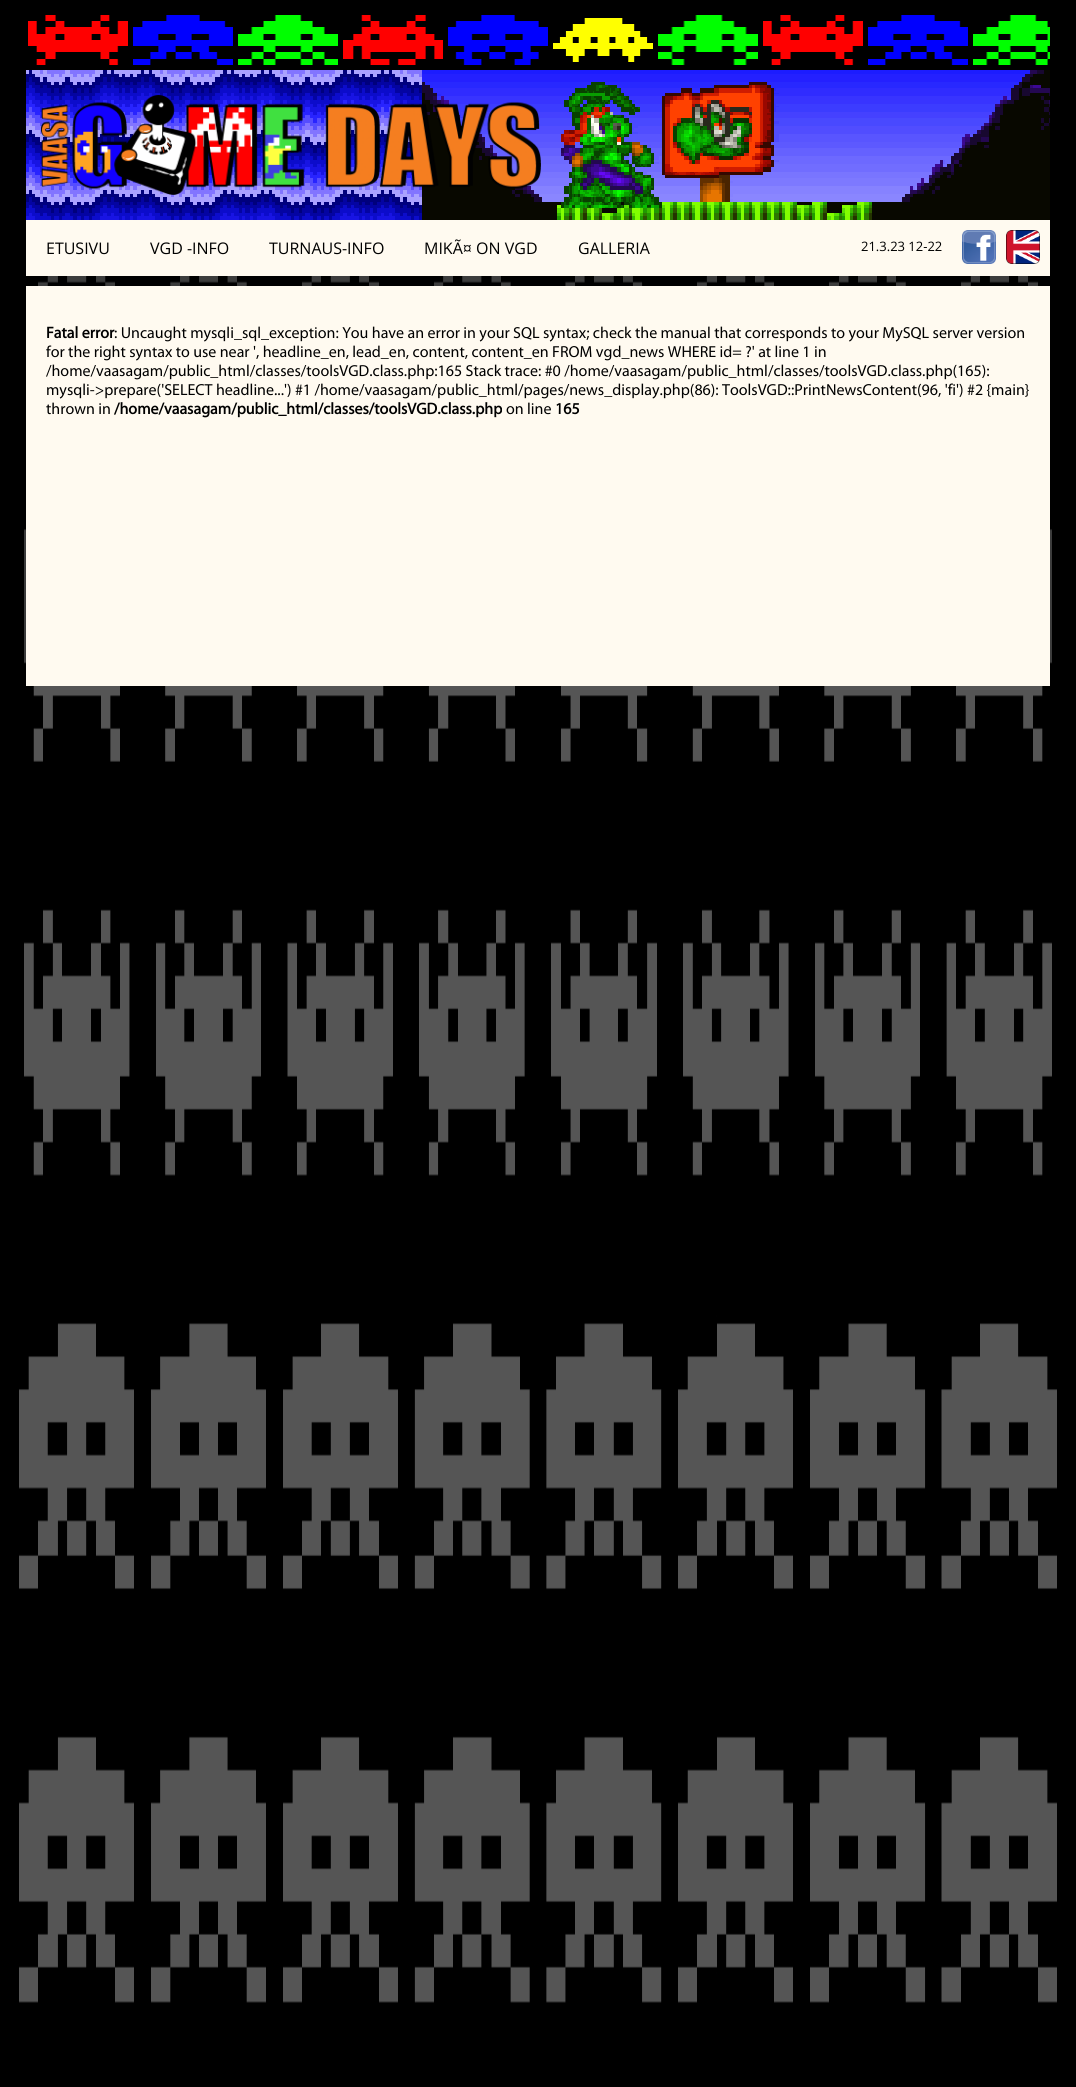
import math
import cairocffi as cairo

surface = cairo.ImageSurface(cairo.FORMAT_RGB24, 1076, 2087)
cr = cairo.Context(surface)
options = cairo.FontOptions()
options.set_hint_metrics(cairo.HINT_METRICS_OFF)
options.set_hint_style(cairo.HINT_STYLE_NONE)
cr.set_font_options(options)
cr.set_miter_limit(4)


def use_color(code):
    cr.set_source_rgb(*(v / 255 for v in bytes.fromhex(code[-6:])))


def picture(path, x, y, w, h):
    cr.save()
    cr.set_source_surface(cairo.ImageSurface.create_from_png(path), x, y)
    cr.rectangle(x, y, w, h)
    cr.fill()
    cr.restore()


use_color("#000000")
cr.paint()
picture("img1.png", 19, 82, 1038, 1921)
cr.set_source_rgba(0, 0, 0, 0.3)
cr.rectangle(24, 82, 1028, 604)
cr.fill()
picture("img2.png", 28, 15, 100, 50)
picture("img3.png", 133, 15, 100, 50)
picture("img4.png", 238, 15, 100, 50)
picture("img5.png", 343, 15, 100, 50)
picture("img6.png", 448, 15, 100, 50)
picture("img7.png", 553, 18, 100, 44)
picture("img8.png", 658, 15, 100, 50)
picture("img2.png", 763, 15, 100, 50)
picture("img3.png", 868, 15, 100, 50)
picture("img9.png", 973, 15, 77, 50)
picture("img10.png", 26, 70, 1024, 150)
picture("img11.png", 41, 95, 500, 100)
use_color("#fffaf0")
cr.rectangle(26, 220, 1024, 56)
cr.fill()
cr.select_font_face("Open Sans")
cr.set_font_size(16)
use_color("#000000")
cr.move_to(46, 254)
cr.show_text("ETUSIVU")
cr.move_to(150, 254)
cr.show_text("VGD -INFO")
cr.move_to(269, 254)
cr.show_text("TURNAUS-INFO")
cr.move_to(424, 254)
cr.show_text("MIKÃ¤ ON VGD")
cr.move_to(578, 254)
cr.show_text("GALLERIA")
cr.set_font_size(13)
cr.move_to(861, 251)
cr.show_text("21.3.23 12-22")
picture("img12.png", 962, 230, 34, 34)
picture("img13.png", 1006, 230, 34, 34)
use_color("#fffaf0")
cr.rectangle(26, 286, 1024, 400)
cr.fill()
cr.select_font_face("Myriad", cairo.FONT_SLANT_NORMAL, cairo.FONT_WEIGHT_BOLD)
cr.set_font_size(16)
use_color("#000000")
cr.move_to(46, 338)
cr.show_text("Fatal error")
cr.select_font_face("Myriad")
cr.move_to(114, 338)
cr.show_text(": Uncaught mysqli_sql_exception: You have an error in your SQL syntax; check the manual that corresponds to your MySQL server version")
cr.move_to(46, 357)
cr.show_text("for the right syntax to use near ', headline_en, lead_en, content, content_en FROM vgd_news WHERE id= ?' at line 1 in")
cr.move_to(46, 376)
cr.show_text("/home/vaasagam/public_html/classes/toolsVGD.class.php:165 Stack trace: #0 /home/vaasagam/public_html/classes/toolsVGD.class.php(165):")
cr.move_to(46, 395)
cr.show_text("mysqli->prepare('SELECT headline...') #1 /home/vaasagam/public_html/pages/news_display.php(86): ToolsVGD::PrintNewsContent(96, 'fi') #2 {main}")
cr.move_to(46, 414)
cr.show_text("thrown in")
cr.select_font_face("Myriad", cairo.FONT_SLANT_NORMAL, cairo.FONT_WEIGHT_BOLD)
cr.move_to(114, 414)
cr.show_text("/home/vaasagam/public_html/classes/toolsVGD.class.php")
cr.select_font_face("Myriad")
cr.move_to(506, 414)
cr.show_text("on line")
cr.select_font_face("Myriad", cairo.FONT_SLANT_NORMAL, cairo.FONT_WEIGHT_BOLD)
cr.move_to(555, 414)
cr.show_text("165")
surface.write_to_png("result.png")
